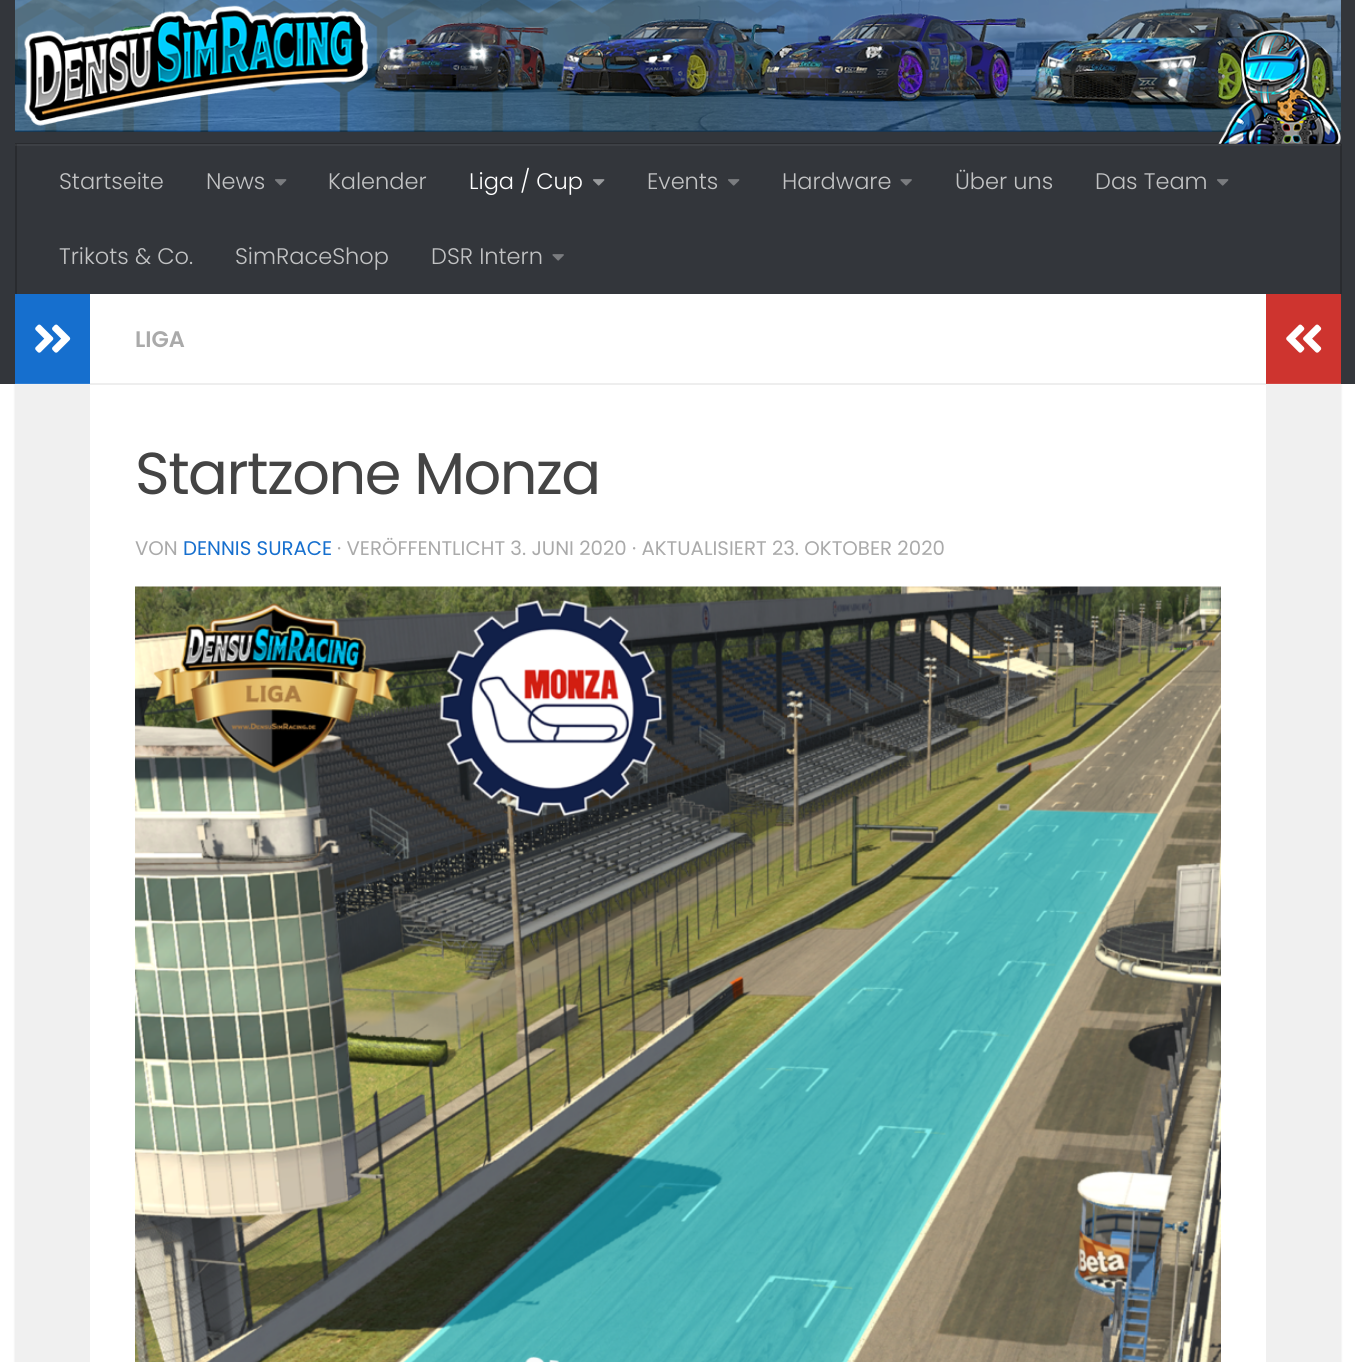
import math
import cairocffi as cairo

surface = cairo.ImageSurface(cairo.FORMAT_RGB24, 1355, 1362)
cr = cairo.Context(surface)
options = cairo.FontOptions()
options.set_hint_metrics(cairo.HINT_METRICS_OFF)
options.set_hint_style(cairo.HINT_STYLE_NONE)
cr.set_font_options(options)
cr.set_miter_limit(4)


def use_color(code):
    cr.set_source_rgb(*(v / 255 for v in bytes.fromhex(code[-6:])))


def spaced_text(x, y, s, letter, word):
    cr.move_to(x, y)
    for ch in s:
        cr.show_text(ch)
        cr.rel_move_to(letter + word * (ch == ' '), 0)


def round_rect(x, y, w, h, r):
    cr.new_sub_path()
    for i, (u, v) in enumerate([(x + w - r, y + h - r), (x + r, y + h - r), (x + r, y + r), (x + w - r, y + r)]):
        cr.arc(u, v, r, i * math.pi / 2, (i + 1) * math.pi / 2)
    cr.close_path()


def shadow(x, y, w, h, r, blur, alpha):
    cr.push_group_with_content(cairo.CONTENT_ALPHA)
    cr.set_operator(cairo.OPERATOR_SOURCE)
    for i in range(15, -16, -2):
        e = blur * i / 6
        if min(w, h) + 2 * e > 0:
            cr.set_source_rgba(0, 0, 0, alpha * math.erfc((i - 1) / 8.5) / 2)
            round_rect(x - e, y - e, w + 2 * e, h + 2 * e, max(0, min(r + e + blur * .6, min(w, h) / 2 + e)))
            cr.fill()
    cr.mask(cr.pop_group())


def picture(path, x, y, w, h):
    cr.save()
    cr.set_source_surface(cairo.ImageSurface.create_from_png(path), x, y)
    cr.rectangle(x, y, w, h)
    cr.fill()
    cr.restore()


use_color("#ffffff")
cr.paint()
use_color("#000000")
shadow(15, 296, 1326, 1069, 0, 1, 0.1)
use_color("#33363b")
cr.rectangle(0, 0, 1355, 384)
cr.fill()
use_color("#3d4045")
cr.rectangle(15, 144, 1326, 2)
cr.fill()
picture("img1.png", 15, 0, 1326, 144)
cr.set_source_rgba(0, 0, 0, 0.2)
cr.rectangle(15, 143, 1326, 1)
cr.fill()
use_color("#292b2f")
cr.rectangle(1340, 144, 2, 150)
cr.fill()
use_color("#343639")
cr.rectangle(1340, 144, 1, 2)
cr.fill()
use_color("#292b2f")
cr.rectangle(15, 144, 2, 150)
cr.fill()
use_color("#343639")
cr.rectangle(15, 144, 2, 2)
cr.fill()
cr.select_font_face("Poppins Light")
cr.set_font_size(22.5)
use_color("#c2c3c4")
cr.move_to(59, 189)
cr.show_text("Startseite")
cr.move_to(206, 189)
cr.show_text("News")
picture("img2.png", 275, 179, 12, 7)
cr.move_to(328, 189)
cr.show_text("Kalender")
use_color("#ffffff")
cr.move_to(469, 189)
cr.show_text("Liga / Cup")
picture("img3.png", 593, 179, 12, 7)
use_color("#c2c3c4")
cr.move_to(647, 189)
cr.show_text("Events")
picture("img2.png", 728, 179, 12, 7)
cr.move_to(782, 189)
cr.show_text("Hardware")
picture("img4.png", 900, 179, 12, 7)
cr.move_to(955, 189)
cr.show_text("Über uns")
cr.move_to(1095, 189)
cr.show_text("Das Team")
picture("img2.png", 1217, 179, 12, 7)
cr.move_to(59, 264)
cr.show_text("Trikots & Co.")
cr.move_to(235, 264)
cr.show_text("SimRaceShop")
cr.move_to(431, 264)
cr.show_text("DSR Intern")
picture("img4.png", 552, 254, 12, 7)
use_color("#ffffff")
cr.rectangle(90, 294, 1176, 1068)
cr.fill()
use_color("#f0f0f0")
cr.rectangle(15, 385, 75, 977)
cr.fill()
use_color("#f2f2f2")
cr.rectangle(15, 384, 75, 1)
cr.fill()
use_color("#166fce")
cr.rectangle(15, 294, 75, 89)
cr.fill()
use_color("#2d7dd3")
cr.rectangle(15, 383, 75, 1)
cr.fill()
picture("img5.png", 35, 324, 36, 29)
use_color("#eeeeee")
cr.rectangle(90, 383, 1176, 2)
cr.fill()
cr.select_font_face("Poppins SemiBold")
use_color("#aaaaaa")
cr.move_to(135, 347)
cr.show_text("LIGA")
cr.select_font_face("Poppins")
cr.set_font_size(59)
use_color("#444444")
spaced_text(135, 494, "Startzone Monza", -1.5, 0)
cr.set_font_size(19.75)
use_color("#aaaaaa")
cr.move_to(135, 555)
cr.show_text("VON")
use_color("#166fce")
cr.move_to(183, 555)
cr.show_text("DENNIS SURACE")
use_color("#aaaaaa")
cr.move_to(337, 555)
cr.show_text("· VERÖFFENTLICHT 3. JUNI 2020 · AKTUALISIERT 23. OKTOBER 2020")
picture("img6.png", 135, 586, 1086, 776)
use_color("#ce342f")
cr.rectangle(1266, 294, 75, 89)
cr.fill()
use_color("#d34844")
cr.rectangle(1266, 383, 75, 1)
cr.fill()
picture("img7.png", 1286, 324, 36, 29)
use_color("#f0f0f0")
cr.rectangle(1266, 385, 75, 977)
cr.fill()
use_color("#f2f2f2")
cr.rectangle(1266, 384, 75, 1)
cr.fill()
surface.write_to_png("result.png")
